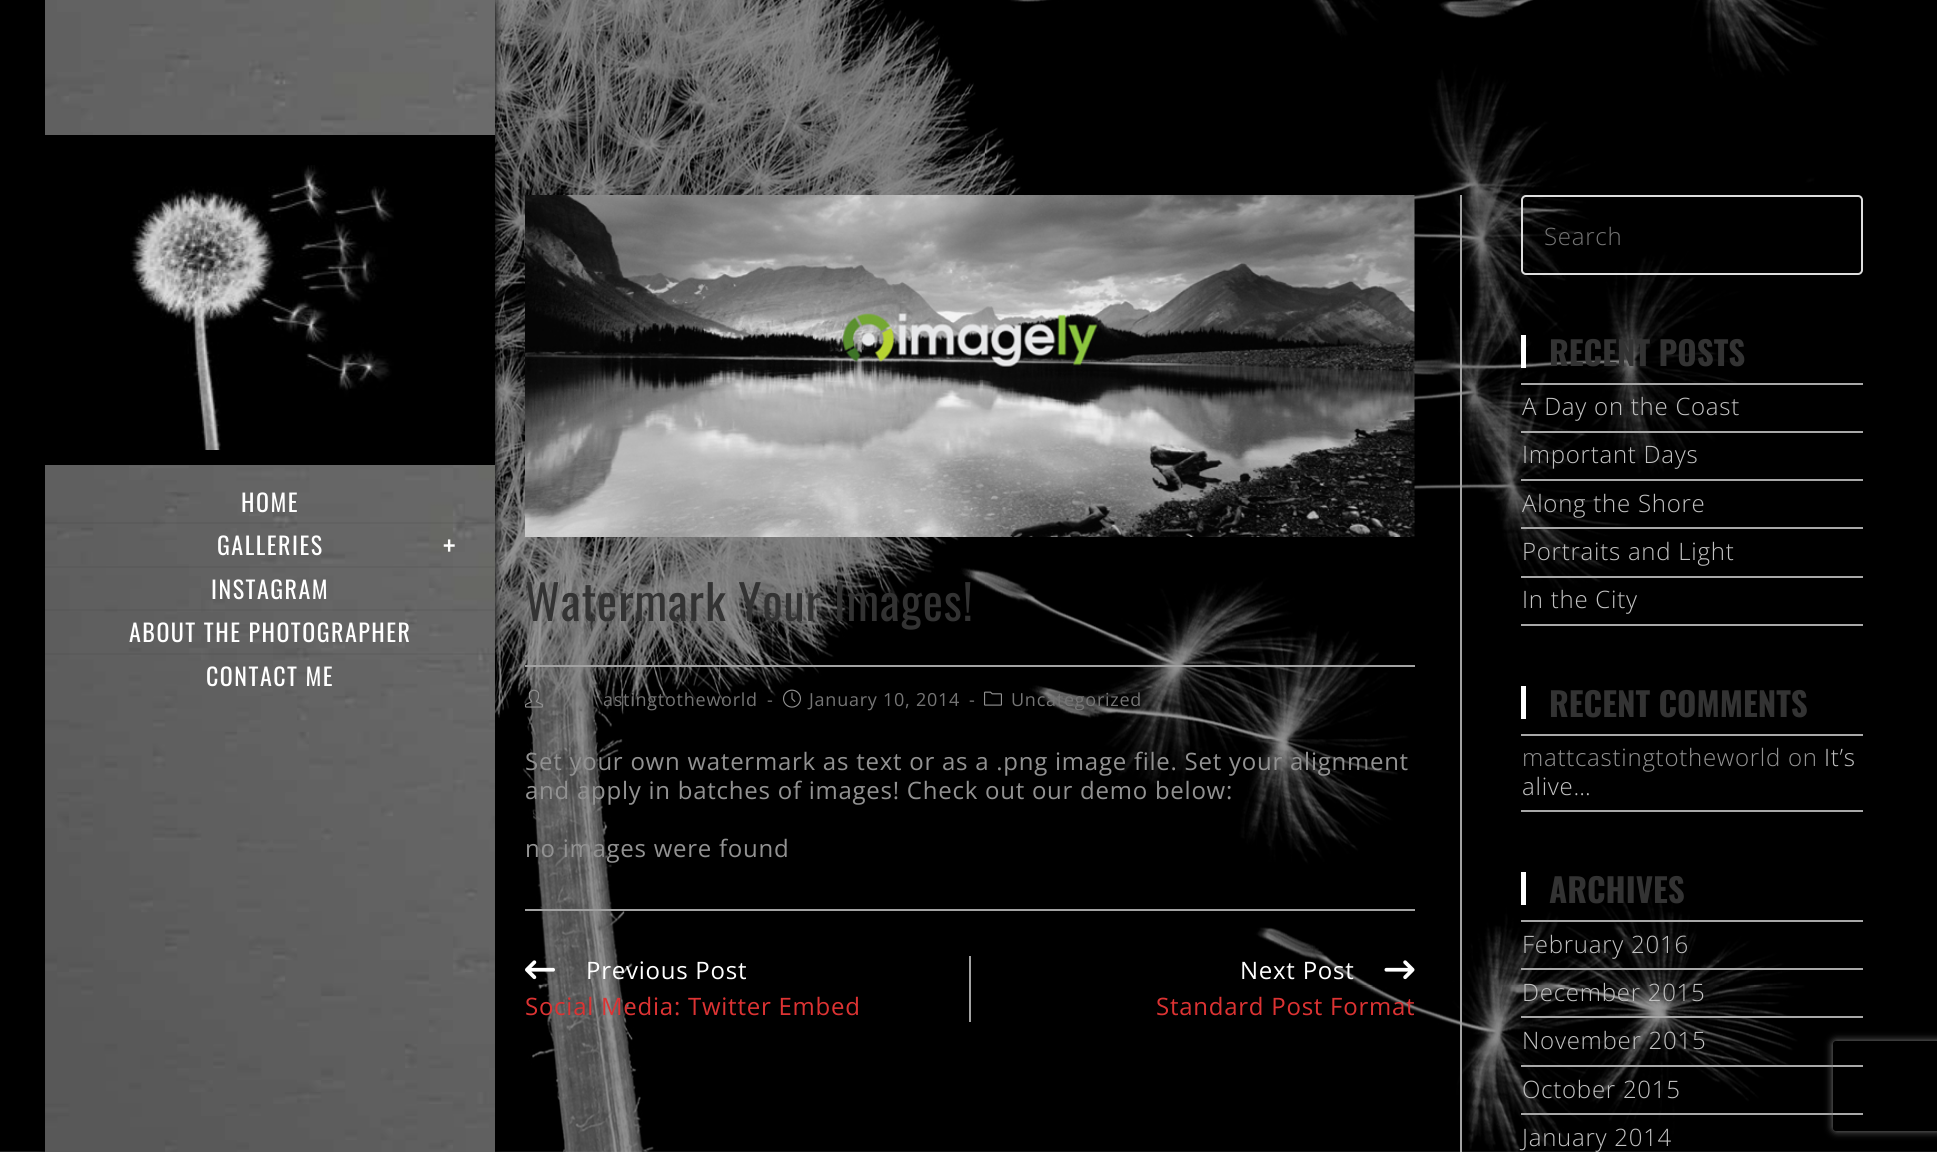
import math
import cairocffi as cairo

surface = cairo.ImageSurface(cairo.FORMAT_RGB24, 1937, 1152)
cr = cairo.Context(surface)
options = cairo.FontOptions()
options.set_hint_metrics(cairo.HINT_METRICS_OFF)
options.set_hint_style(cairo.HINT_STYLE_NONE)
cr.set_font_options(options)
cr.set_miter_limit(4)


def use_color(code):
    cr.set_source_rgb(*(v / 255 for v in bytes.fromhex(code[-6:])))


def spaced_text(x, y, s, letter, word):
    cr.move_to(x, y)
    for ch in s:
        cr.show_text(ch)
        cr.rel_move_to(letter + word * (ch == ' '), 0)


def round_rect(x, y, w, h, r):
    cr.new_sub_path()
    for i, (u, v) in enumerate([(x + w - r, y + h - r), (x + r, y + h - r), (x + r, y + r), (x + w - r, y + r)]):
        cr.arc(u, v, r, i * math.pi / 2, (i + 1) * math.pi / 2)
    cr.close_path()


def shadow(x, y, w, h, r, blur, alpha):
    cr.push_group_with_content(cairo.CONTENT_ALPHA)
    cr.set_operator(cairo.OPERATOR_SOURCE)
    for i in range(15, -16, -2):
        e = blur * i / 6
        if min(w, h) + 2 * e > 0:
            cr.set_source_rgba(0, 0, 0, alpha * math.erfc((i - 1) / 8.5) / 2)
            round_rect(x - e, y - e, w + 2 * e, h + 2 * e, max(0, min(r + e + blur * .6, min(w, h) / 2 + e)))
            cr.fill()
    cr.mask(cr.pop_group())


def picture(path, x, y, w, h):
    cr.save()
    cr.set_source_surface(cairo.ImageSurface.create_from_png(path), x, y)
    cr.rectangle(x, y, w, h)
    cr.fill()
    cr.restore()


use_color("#ffffff")
cr.paint()
picture("img1.png", 0, 0, 1937, 1152)
cr.set_source_rgba(0, 0, 0, 0.4)
cr.rectangle(495, 0, 1442, 1152)
cr.fill()
use_color("#000000")
shadow(45, 3, 450, 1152, 0, 4, 1)
picture("img2.png", 45, 0, 450, 1152)
use_color("#000000")
cr.rectangle(45, 135, 450, 330)
cr.fill()
picture("img3.png", 130, 165, 264, 285)
cr.set_source_rgba(0, 0, 0, 0.05)
cr.rectangle(45, 522, 450, 2)
cr.fill()
cr.select_font_face("Oswald")
cr.set_font_size(24)
use_color("#ffffff")
spaced_text(241, 512, "HOME", 1.5, 0)
cr.set_source_rgba(0, 0, 0, 0.05)
cr.rectangle(45, 566, 450, 2)
cr.fill()
use_color("#ffffff")
spaced_text(217, 555, "GALLERIES", 1.5, 0)
cr.set_font_size(30)
spaced_text(443, 558, "+", 1.5, 0)
cr.set_source_rgba(0, 0, 0, 0.05)
cr.rectangle(45, 609, 450, 2)
cr.fill()
cr.set_font_size(24)
use_color("#ffffff")
spaced_text(211, 599, "INSTAGRAM", 1.5, 0)
cr.set_source_rgba(0, 0, 0, 0.05)
cr.rectangle(45, 653, 450, 2)
cr.fill()
use_color("#ffffff")
spaced_text(129, 642, "ABOUT THE PHOTOGRAPHER", 1.5, 0)
spaced_text(206, 686, "CONTACT ME", 1.5, 0)
use_color("#a3a3a3")
cr.rectangle(1460, 195, 2, 957)
cr.fill()
picture("img4.png", 525, 195, 890, 342)
cr.rectangle(525, 665, 890, 2)
cr.fill()
cr.set_font_size(48)
use_color("#333333")
spaced_text(525, 621, "Watermark Your Images!", 0.9, 0)
picture("img5.png", 525, 689, 18, 19)
cr.select_font_face("Open Sans")
cr.set_font_size(18)
use_color("#757575")
spaced_text(603, 706, "astingtotheworld", 0.75, 0)
spaced_text(767, 706, "-", 0.75, 0)
picture("img6.png", 783, 689, 18, 19)
spaced_text(809, 706, "January 10, 2014", 0.75, 0)
spaced_text(969, 706, "-", 0.75, 0)
picture("img7.png", 984, 691, 18, 15)
spaced_text(1011, 706, "Uncategorized", 0.75, 0)
cr.set_font_size(24)
use_color("#929292")
spaced_text(525, 770, "Set your own watermark as text or as a .png image file. Set your alignment", 0.75, 0)
spaced_text(525, 799, "and apply in batches of images! Check out our demo below:", 0.75, 0)
spaced_text(525, 857, "no images were found", 0.75, 0)
use_color("#a3a3a3")
cr.rectangle(525, 909, 890, 2)
cr.fill()
cr.rectangle(969, 956, 2, 66)
cr.fill()
picture("img8.png", 525, 960, 30, 20)
use_color("#ffffff")
spaced_text(586, 979, "Previous Post", 0.75, 0)
use_color("#dd3333")
spaced_text(525, 1015, "Social Media: Twitter Embed", 0.75, 0)
use_color("#ffffff")
spaced_text(1240, 979, "Next Post", 0.75, 0)
picture("img9.png", 1384, 960, 31, 20)
use_color("#dd3333")
spaced_text(1156, 1015, "Standard Post Format", 0.75, 0)
round_rect(1522, 196, 340, 78, 4)
use_color("#dddddd")
cr.stroke()
cr.select_font_face("Open Sans Light")
use_color("#757575")
spaced_text(1544, 245, "Search", 0.75, 0)
use_color("#ffffff")
cr.rectangle(1521, 335, 5, 33)
cr.fill()
cr.select_font_face("Oswald", cairo.FONT_SLANT_NORMAL, cairo.FONT_WEIGHT_BOLD)
cr.set_font_size(33)
use_color("#333333")
cr.move_to(1549, 366)
cr.show_text("RECENT POSTS")
use_color("#a8a8a8")
cr.rectangle(1521, 383, 342, 2)
cr.fill()
cr.rectangle(1521, 431, 342, 2)
cr.fill()
cr.select_font_face("Open Sans Light")
cr.set_font_size(24)
use_color("#c2c2c2")
spaced_text(1522, 415, "A Day on the Coast", 0.75, 0)
use_color("#a8a8a8")
cr.rectangle(1521, 479, 342, 2)
cr.fill()
use_color("#c2c2c2")
spaced_text(1522, 463, "Important Days", 0.75, 0)
use_color("#a8a8a8")
cr.rectangle(1521, 527, 342, 2)
cr.fill()
use_color("#c2c2c2")
spaced_text(1522, 512, "Along the Shore", 0.75, 0)
use_color("#a8a8a8")
cr.rectangle(1521, 576, 342, 2)
cr.fill()
use_color("#c2c2c2")
spaced_text(1522, 560, "Portraits and Light", 0.75, 0)
use_color("#a8a8a8")
cr.rectangle(1521, 624, 342, 2)
cr.fill()
use_color("#c2c2c2")
spaced_text(1522, 608, "In the City", 0.75, 0)
use_color("#ffffff")
cr.rectangle(1521, 686, 5, 33)
cr.fill()
cr.select_font_face("Oswald", cairo.FONT_SLANT_NORMAL, cairo.FONT_WEIGHT_BOLD)
cr.set_font_size(33)
use_color("#333333")
cr.move_to(1549, 717)
cr.show_text("RECENT COMMENTS")
use_color("#a8a8a8")
cr.rectangle(1521, 734, 342, 2)
cr.fill()
cr.rectangle(1521, 810, 342, 2)
cr.fill()
cr.select_font_face("Open Sans Light")
cr.set_font_size(24)
use_color("#929292")
spaced_text(1522, 766, "mattcastingtotheworld on", 0.75, 0)
use_color("#c2c2c2")
spaced_text(1824, 766, "It’s", 0.75, 0)
spaced_text(1522, 795, "alive…", 0.75, 0)
use_color("#ffffff")
cr.rectangle(1521, 872, 5, 33)
cr.fill()
cr.select_font_face("Oswald", cairo.FONT_SLANT_NORMAL, cairo.FONT_WEIGHT_BOLD)
cr.set_font_size(33)
use_color("#333333")
cr.move_to(1549, 903)
cr.show_text("ARCHIVES")
use_color("#a8a8a8")
cr.rectangle(1521, 920, 342, 2)
cr.fill()
cr.rectangle(1521, 968, 342, 2)
cr.fill()
cr.select_font_face("Open Sans Light")
cr.set_font_size(24)
use_color("#c2c2c2")
spaced_text(1522, 953, "February 2016", 0.75, 0)
use_color("#a8a8a8")
cr.rectangle(1521, 1016, 342, 2)
cr.fill()
use_color("#c2c2c2")
spaced_text(1522, 1001, "December 2015", 0.75, 0)
use_color("#a8a8a8")
cr.rectangle(1521, 1065, 342, 2)
cr.fill()
use_color("#c2c2c2")
spaced_text(1522, 1049, "November 2015", 0.75, 0)
use_color("#a8a8a8")
cr.rectangle(1521, 1113, 342, 2)
cr.fill()
use_color("#c2c2c2")
spaced_text(1522, 1098, "October 2015", 0.75, 0)
spaced_text(1522, 1146, "January 2014", 0.75, 0)
cr.save()
cr.set_fill_rule(cairo.FILL_RULE_EVEN_ODD)
cr.new_path()
cr.move_to(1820, 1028)
cr.line_to(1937, 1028)
cr.line_to(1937, 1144)
cr.line_to(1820, 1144)
cr.close_path()
cr.move_to(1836, 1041)
cr.line_to(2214, 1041)
cr.curve_to(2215.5, 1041, 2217, 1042.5, 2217, 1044)
cr.line_to(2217, 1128)
cr.curve_to(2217, 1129.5, 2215.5, 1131, 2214, 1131)
cr.line_to(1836, 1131)
cr.curve_to(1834.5, 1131, 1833, 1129.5, 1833, 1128)
cr.line_to(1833, 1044)
cr.curve_to(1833, 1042.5, 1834.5, 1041, 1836, 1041)
cr.close_path()
cr.clip()
use_color("#808080")
shadow(1833, 1041, 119, 90, 3, 4, 1)
cr.restore()
surface.write_to_png("result.png")
